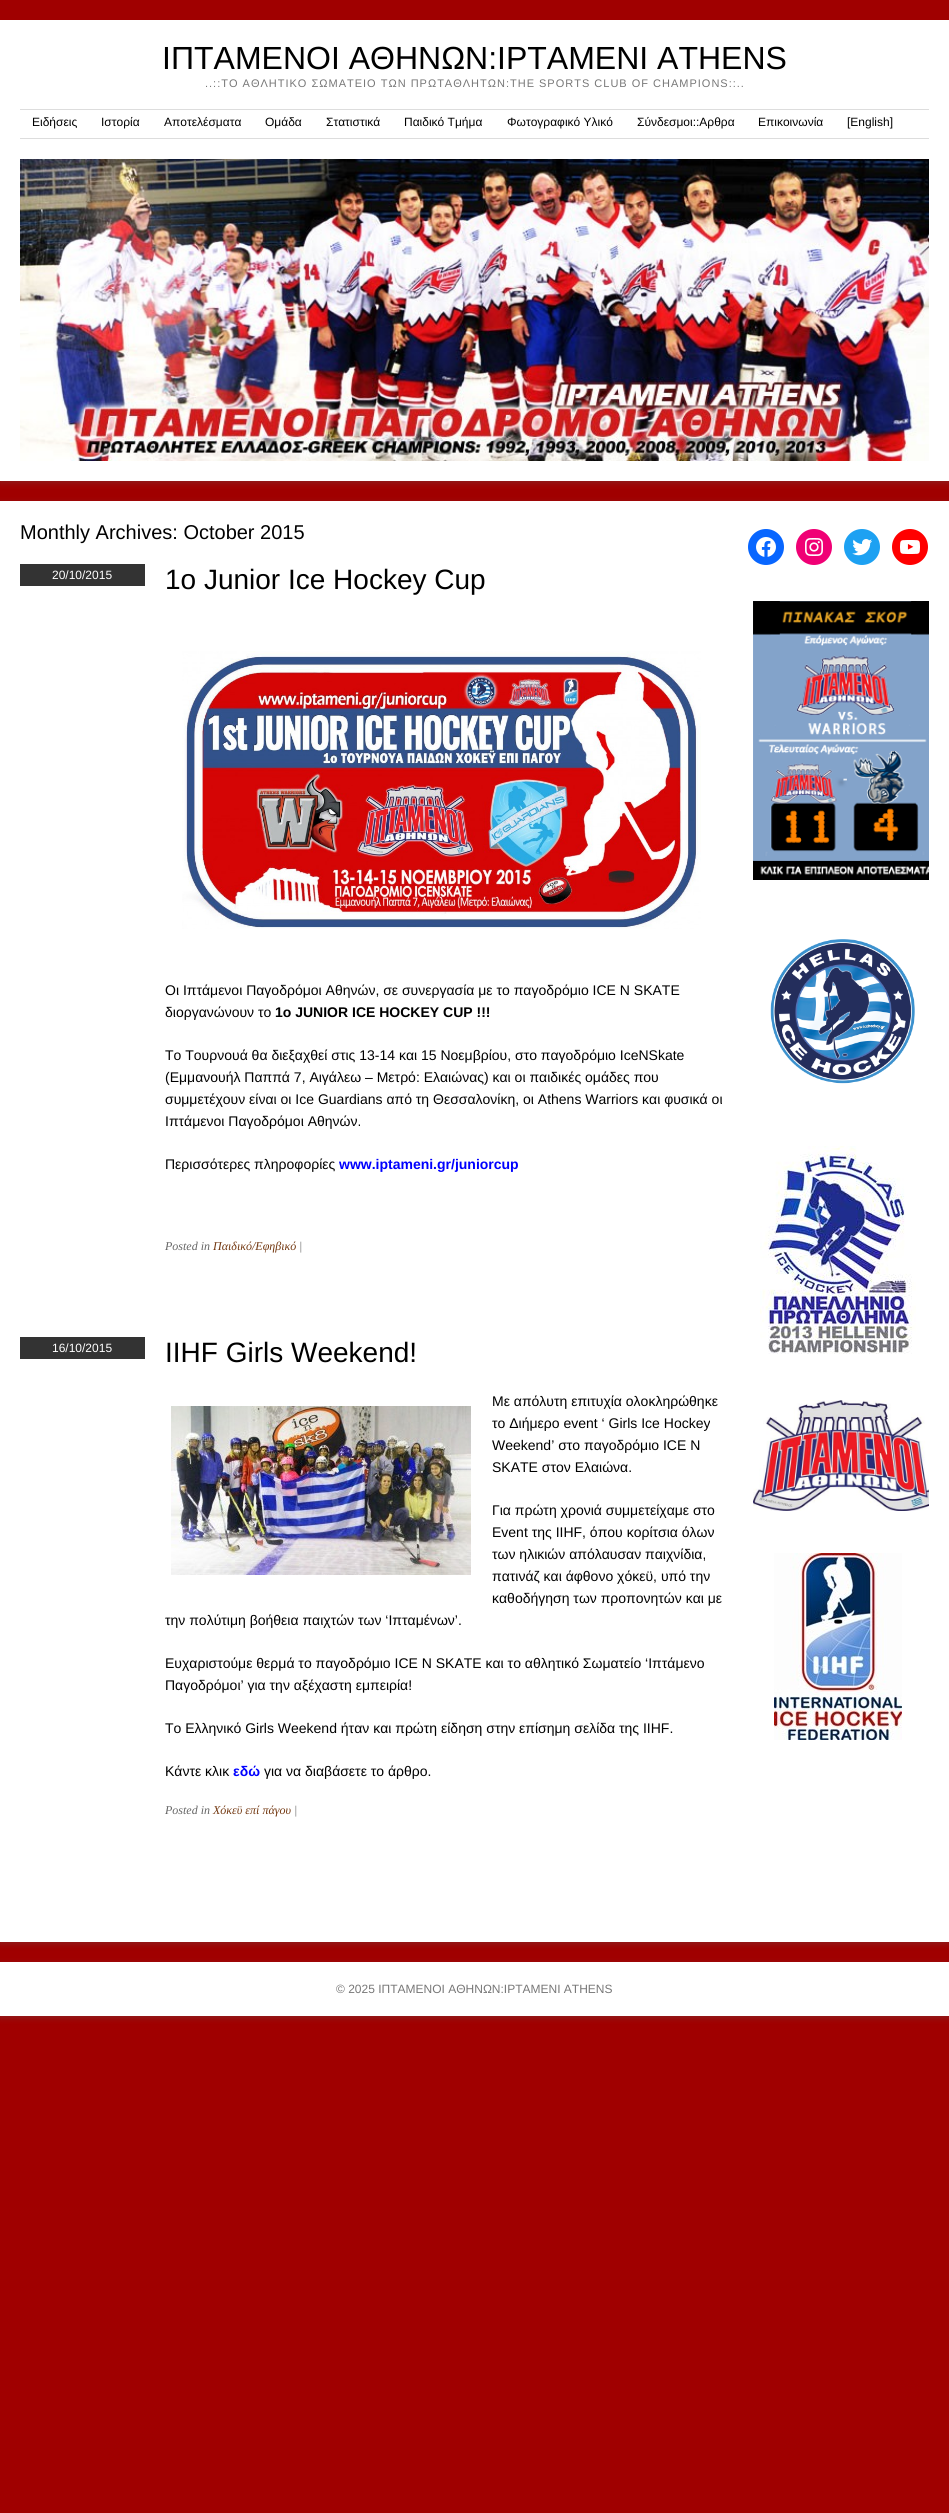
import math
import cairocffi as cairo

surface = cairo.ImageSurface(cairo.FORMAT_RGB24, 949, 2513)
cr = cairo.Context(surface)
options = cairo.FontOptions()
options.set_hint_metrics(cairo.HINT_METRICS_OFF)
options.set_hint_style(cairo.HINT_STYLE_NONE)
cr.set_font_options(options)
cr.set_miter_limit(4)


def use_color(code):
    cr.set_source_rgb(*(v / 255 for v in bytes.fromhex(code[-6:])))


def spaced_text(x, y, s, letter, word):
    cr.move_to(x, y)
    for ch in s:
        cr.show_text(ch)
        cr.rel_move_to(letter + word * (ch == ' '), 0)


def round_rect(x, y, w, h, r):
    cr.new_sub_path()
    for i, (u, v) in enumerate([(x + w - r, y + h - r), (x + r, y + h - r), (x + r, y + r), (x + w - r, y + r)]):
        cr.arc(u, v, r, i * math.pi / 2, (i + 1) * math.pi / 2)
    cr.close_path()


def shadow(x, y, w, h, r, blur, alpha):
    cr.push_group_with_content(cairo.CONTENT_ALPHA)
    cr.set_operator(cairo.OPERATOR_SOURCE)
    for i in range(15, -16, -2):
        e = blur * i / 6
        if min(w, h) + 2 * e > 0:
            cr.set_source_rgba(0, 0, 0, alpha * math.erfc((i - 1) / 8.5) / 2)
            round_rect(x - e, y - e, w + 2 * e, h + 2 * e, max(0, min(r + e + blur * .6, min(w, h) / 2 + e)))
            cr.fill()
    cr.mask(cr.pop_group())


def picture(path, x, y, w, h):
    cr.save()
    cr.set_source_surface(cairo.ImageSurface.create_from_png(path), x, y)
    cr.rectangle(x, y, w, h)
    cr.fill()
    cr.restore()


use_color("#a00000")
cr.paint()
cr.save()
cr.rectangle(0, 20, 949, 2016)
cr.clip()
use_color("#646464")
shadow(0, 22, 949, 461, 0, 3, 0.3)
cr.restore()
use_color("#ffffff")
cr.rectangle(0, 20, 949, 461)
cr.fill()
cr.select_font_face("Liberation Sans")
cr.set_font_size(32)
use_color("#000000")
cr.move_to(162, 69)
cr.show_text("ΙΠΤΑΜΕΝΟΙ ΑΘΗΝΩΝ:IPTAMENI ATHENS")
cr.set_font_size(11)
use_color("#777777")
spaced_text(205, 87, "..::ΤΟ ΑΘΛΗΤΙΚΟ ΣΩΜΑΤΕΙΟ ΤΩΝ ΠΡΩΤΑΘΛΗΤΩΝ:THE SPORTS CLUB OF CHAMPIONS::..", 1, 0)
use_color("#dddddd")
cr.rectangle(20, 109, 909, 1)
cr.fill()
cr.rectangle(20, 138, 909, 1)
cr.fill()
cr.set_font_size(12)
use_color("#000000")
cr.move_to(32, 126)
cr.show_text("Ειδήσεις")
cr.move_to(101, 126)
cr.show_text("Ιστορία")
cr.move_to(164, 126)
cr.show_text("Αποτελέσματα")
cr.move_to(265, 126)
cr.show_text("Ομάδα")
cr.move_to(326, 126)
cr.show_text("Στατιστικά")
cr.move_to(404, 126)
cr.show_text("Παιδικό Τμήμα")
cr.move_to(507, 126)
cr.show_text("Φωτογραφικό Υλικό")
cr.move_to(637, 126)
cr.show_text("Σύνδεσμοι::Αρθρα")
cr.move_to(758, 126)
cr.show_text("Επικοινωνία")
cr.move_to(847, 126)
cr.show_text("[English]")
picture("img1.png", 20, 159, 909, 302)
use_color("#646464")
shadow(0, 503, 949, 1441, 0, 3, 0.3)
use_color("#ffffff")
cr.rectangle(0, 501, 949, 1441)
cr.fill()
cr.set_font_size(20)
use_color("#000000")
cr.move_to(20, 539)
cr.show_text("Monthly Archives: October 2015")
use_color("#333333")
cr.rectangle(20, 564, 125, 22)
cr.fill()
cr.set_font_size(12)
use_color("#ffffff")
cr.move_to(52, 579)
cr.show_text("20/10/2015")
cr.set_font_size(28)
use_color("#000000")
cr.move_to(165, 589)
cr.show_text("1o Junior Ice Hockey Cup")
picture("img2.png", 182, 651, 519, 278)
cr.set_font_size(14)
cr.move_to(165, 995)
cr.show_text("Οι Ιπτάμενοι Παγοδρόμοι Αθηνών, σε συνεργασία με το παγοδρόμιο ICE N SKATE")
cr.move_to(165, 1017)
cr.show_text("διοργανώνουν το")
cr.select_font_face("Liberation Sans", cairo.FONT_SLANT_NORMAL, cairo.FONT_WEIGHT_BOLD)
cr.move_to(275, 1017)
cr.show_text("1ο JUNIOR ICE HOCKEY CUP !!!")
cr.select_font_face("Liberation Sans")
cr.move_to(165, 1060)
cr.show_text("Το Τουρνουά θα διεξαχθεί στις 13-14 και 15 Νοεμβρίου, στο παγοδρόμιο IceNSkate")
cr.move_to(165, 1082)
cr.show_text("(Εμμανουήλ Παππά 7, Αιγάλεω – Μετρό: Ελαιώνας) και οι παιδικές ομάδες που")
cr.move_to(165, 1104)
cr.show_text("συμμετέχουν είναι οι Ice Guardians από τη Θεσσαλονίκη, οι Athens Warriors και φυσικά οι")
cr.move_to(165, 1126)
cr.show_text("Ιπτάμενοι Παγοδρόμοι Αθηνών.")
cr.move_to(165, 1169)
cr.show_text("Περισσότερες πληροφορίες")
cr.select_font_face("Liberation Sans", cairo.FONT_SLANT_NORMAL, cairo.FONT_WEIGHT_BOLD)
use_color("#0000ff")
cr.move_to(339, 1169)
cr.show_text("www.iptameni.gr/juniorcup")
cr.select_font_face("Liberation Serif", cairo.FONT_SLANT_ITALIC)
cr.set_font_size(12)
use_color("#666666")
cr.move_to(165, 1250)
cr.show_text("Posted in")
use_color("#723710")
cr.move_to(213, 1250)
cr.show_text("Παιδικό/Εφηβικό")
use_color("#666666")
cr.move_to(299, 1250)
cr.show_text("|")
use_color("#333333")
cr.rectangle(20, 1337, 125, 22)
cr.fill()
cr.select_font_face("Liberation Sans")
use_color("#ffffff")
cr.move_to(52, 1352)
cr.show_text("16/10/2015")
cr.set_font_size(28)
use_color("#000000")
cr.move_to(165, 1362)
cr.show_text("IIHF Girls Weekend!")
cr.set_font_size(14)
cr.move_to(492, 1406)
cr.show_text("Με απόλυτη επιτυχία ολοκληρώθηκε")
picture("img3.png", 171, 1406, 300, 169)
cr.move_to(492, 1428)
cr.show_text("το Διήμερο event ‘ Girls Ice Hockey")
cr.move_to(492, 1450)
cr.show_text("Weekend’ στο παγοδρόμιο ICE N")
cr.move_to(492, 1472)
cr.show_text("SKATE στον Ελαιώνα.")
cr.move_to(492, 1515)
cr.show_text("Για πρώτη χρονιά συμμετείχαμε στο")
cr.move_to(492, 1537)
cr.show_text("Event της IIHF, όπου κορίτσια όλων")
cr.move_to(492, 1559)
cr.show_text("των ηλικιών απόλαυσαν παιχνίδια,")
cr.move_to(492, 1581)
cr.show_text("πατινάζ και άφθονο χόκεϋ, υπό την")
cr.move_to(492, 1603)
cr.show_text("καθοδήγηση των προπονητών και με")
cr.move_to(165, 1625)
cr.show_text("την πολύτιμη βοήθεια παιχτών των ‘Ιπταμένων’.")
cr.move_to(165, 1668)
cr.show_text("Ευχαριστούμε θερμά το παγοδρόμιο ICE N SKATE και το αθλητικό Σωματείο ‘Ιπτάμενο")
cr.move_to(165, 1690)
cr.show_text("Παγοδρόμοι’ για την αξέχαστη εμπειρία!")
cr.move_to(165, 1733)
cr.show_text("Το Ελληνικό Girls Weekend ήταν και πρώτη είδηση στην επίσημη σελίδα της IIHF.")
cr.move_to(165, 1776)
cr.show_text("Κάντε κλικ")
cr.select_font_face("Liberation Sans", cairo.FONT_SLANT_NORMAL, cairo.FONT_WEIGHT_BOLD)
use_color("#0000ff")
cr.move_to(233, 1776)
cr.show_text("εδώ")
cr.select_font_face("Liberation Sans")
use_color("#000000")
cr.move_to(264, 1776)
cr.show_text("για να διαβάσετε το άρθρο.")
cr.select_font_face("Liberation Serif", cairo.FONT_SLANT_ITALIC)
cr.set_font_size(12)
use_color("#666666")
cr.move_to(165, 1814)
cr.show_text("Posted in")
use_color("#723710")
cr.move_to(213, 1814)
cr.show_text("Χόκεϋ επί πάγου")
use_color("#666666")
cr.move_to(294, 1814)
cr.show_text("|")
use_color("#0866ff")
cr.new_path()
cr.arc(766, 547, 18, 0, 2 * math.pi)
cr.fill()
picture("img4.png", 756, 537, 20, 20)
use_color("#f00075")
cr.arc(814, 547, 18, 0, 2 * math.pi)
cr.fill()
picture("img5.png", 805, 538, 18, 18)
use_color("#1da1f2")
cr.arc(862, 547, 18, 0, 2 * math.pi)
cr.fill()
picture("img6.png", 852, 539, 20, 17)
use_color("#ff0000")
cr.arc(910, 547, 18, 0, 2 * math.pi)
cr.fill()
picture("img7.png", 900, 540, 20, 14)
picture("img8.png", 753, 601, 176, 279)
picture("img9.png", 770, 939, 145, 145)
picture("img10.png", 760, 1146, 156, 208)
picture("img11.png", 753, 1400, 176, 111)
picture("img12.png", 774, 1553, 128, 187)
use_color("#646464")
shadow(0, 1964, 949, 54, 0, 3, 0.3)
use_color("#ffffff")
cr.rectangle(0, 1962, 949, 54)
cr.fill()
cr.select_font_face("Liberation Sans")
use_color("#777777")
cr.move_to(336, 1993)
cr.show_text("© 2025 ΙΠΤΑΜΕΝΟΙ ΑΘΗΝΩΝ:IPTAMENI ATHENS")
surface.write_to_png("result.png")
